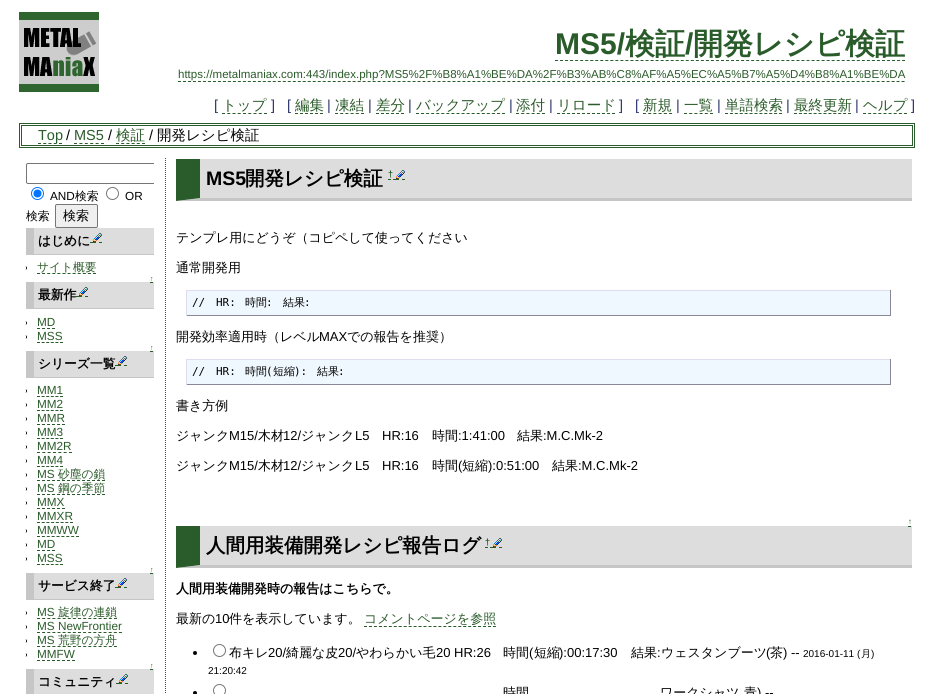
import math
import cairocffi as cairo

surface = cairo.ImageSurface(cairo.FORMAT_RGB24, 934, 694)
cr = cairo.Context(surface)
options = cairo.FontOptions()
options.set_hint_metrics(cairo.HINT_METRICS_OFF)
options.set_hint_style(cairo.HINT_STYLE_NONE)
cr.set_font_options(options)
cr.set_miter_limit(4)


def use_color(code):
    cr.set_source_rgb(*(v / 255 for v in bytes.fromhex(code[-6:])))


def round_rect(x, y, w, h, r):
    cr.new_sub_path()
    for i, (u, v) in enumerate([(x + w - r, y + h - r), (x + r, y + h - r), (x + r, y + r), (x + w - r, y + r)]):
        cr.arc(u, v, r, i * math.pi / 2, (i + 1) * math.pi / 2)
    cr.close_path()


def picture(path, x, y, w, h):
    cr.save()
    cr.set_source_surface(cairo.ImageSurface.create_from_png(path), x, y)
    cr.rectangle(x, y, w, h)
    cr.fill()
    cr.restore()


use_color("#ffffff")
cr.paint()
picture("img1.png", 19, 12, 80, 80)
cr.select_font_face("Liberation Sans", cairo.FONT_SLANT_NORMAL, cairo.FONT_WEIGHT_BOLD)
cr.set_font_size(30)
use_color("#2a5b2a")
cr.move_to(555, 54)
cr.show_text("MS5/")
cr.select_font_face("WenQuanYi Zen Hei", cairo.FONT_SLANT_NORMAL, cairo.FONT_WEIGHT_BOLD)
cr.move_to(625, 54)
cr.show_text("検証")
cr.select_font_face("Liberation Sans", cairo.FONT_SLANT_NORMAL, cairo.FONT_WEIGHT_BOLD)
cr.move_to(685, 54)
cr.show_text("/")
cr.select_font_face("WenQuanYi Zen Hei", cairo.FONT_SLANT_NORMAL, cairo.FONT_WEIGHT_BOLD)
cr.move_to(693, 54)
cr.show_text("開発レシピ検証")
cr.new_path()
cr.move_to(555, 60.5)
cr.line_to(905, 60.5)
cr.set_line_width(1)
cr.set_dash([3, 2.03])
cr.stroke()
cr.select_font_face("Liberation Sans")
cr.set_font_size(11.52)
cr.move_to(178, 78)
cr.show_text("https://metalmaniax.com:443/index.php?MS5%2F%B8%A1%BE%DA%2F%B3%AB%C8%AF%A5%EC%A5%B7%A5%D4%B8%A1%BE%DA")
cr.new_path()
cr.move_to(178, 81.5)
cr.line_to(905, 81.5)
cr.set_dash([3, 1.99])
cr.stroke()
cr.set_font_size(14.5)
use_color("#2e396f")
cr.move_to(214, 110)
cr.show_text("[")
cr.select_font_face("WenQuanYi Zen Hei Medium")
use_color("#2a5b2a")
cr.move_to(222, 110)
cr.show_text("トップ")
cr.new_path()
cr.move_to(222, 113.5)
cr.line_to(267, 113.5)
cr.set_dash([3, 2.25])
cr.stroke()
cr.select_font_face("Liberation Sans")
use_color("#2e396f")
cr.move_to(271, 110)
cr.show_text("]")
cr.move_to(287, 110)
cr.show_text("[")
cr.select_font_face("WenQuanYi Zen Hei Medium")
use_color("#2a5b2a")
cr.move_to(295, 110)
cr.show_text("編集")
cr.new_path()
cr.move_to(295, 113.5)
cr.line_to(323, 113.5)
cr.set_dash([3, 2])
cr.stroke()
cr.select_font_face("Liberation Sans")
use_color("#2e396f")
cr.move_to(327, 110)
cr.show_text("|")
cr.select_font_face("WenQuanYi Zen Hei Medium")
use_color("#2a5b2a")
cr.move_to(335, 110)
cr.show_text("凍結")
cr.new_path()
cr.move_to(335, 113.5)
cr.line_to(364, 113.5)
cr.set_dash([3, 2.2])
cr.stroke()
cr.select_font_face("Liberation Sans")
use_color("#2e396f")
cr.move_to(368, 110)
cr.show_text("|")
cr.select_font_face("WenQuanYi Zen Hei Medium")
use_color("#2a5b2a")
cr.move_to(376, 110)
cr.show_text("差分")
cr.new_path()
cr.move_to(376, 113.5)
cr.line_to(404, 113.5)
cr.set_dash([3, 2])
cr.stroke()
cr.select_font_face("Liberation Sans")
use_color("#2e396f")
cr.move_to(408, 110)
cr.show_text("|")
cr.select_font_face("WenQuanYi Zen Hei Medium")
use_color("#2a5b2a")
cr.move_to(416, 110)
cr.show_text("バックアップ")
cr.new_path()
cr.move_to(416, 113.5)
cr.line_to(505, 113.5)
cr.set_dash([3, 2.06])
cr.stroke()
cr.select_font_face("Liberation Sans")
use_color("#2e396f")
cr.move_to(509, 110)
cr.show_text("|")
cr.select_font_face("WenQuanYi Zen Hei Medium")
use_color("#2a5b2a")
cr.move_to(516, 110)
cr.show_text("添付")
cr.new_path()
cr.move_to(516, 113.5)
cr.line_to(545, 113.5)
cr.set_dash([3, 2.2])
cr.stroke()
cr.select_font_face("Liberation Sans")
use_color("#2e396f")
cr.move_to(549, 110)
cr.show_text("|")
cr.select_font_face("WenQuanYi Zen Hei Medium")
use_color("#2a5b2a")
cr.move_to(557, 110)
cr.show_text("リロード")
cr.new_path()
cr.move_to(557, 113.5)
cr.line_to(615, 113.5)
cr.set_dash([3, 2])
cr.stroke()
cr.select_font_face("Liberation Sans")
use_color("#2e396f")
cr.move_to(619, 110)
cr.show_text("]")
cr.move_to(635, 110)
cr.show_text("[")
cr.select_font_face("WenQuanYi Zen Hei Medium")
use_color("#2a5b2a")
cr.move_to(643, 110)
cr.show_text("新規")
cr.new_path()
cr.move_to(643, 113.5)
cr.line_to(672, 113.5)
cr.set_dash([3, 2.2])
cr.stroke()
cr.select_font_face("Liberation Sans")
use_color("#2e396f")
cr.move_to(676, 110)
cr.show_text("|")
cr.select_font_face("WenQuanYi Zen Hei Medium")
use_color("#2a5b2a")
cr.move_to(684, 110)
cr.show_text("一覧")
cr.new_path()
cr.move_to(684, 113.5)
cr.line_to(713, 113.5)
cr.stroke()
cr.select_font_face("Liberation Sans")
use_color("#2e396f")
cr.move_to(717, 110)
cr.show_text("|")
cr.select_font_face("WenQuanYi Zen Hei Medium")
use_color("#2a5b2a")
cr.move_to(725, 110)
cr.show_text("単語検索")
cr.new_path()
cr.move_to(725, 113.5)
cr.line_to(782, 113.5)
cr.set_dash([3, 1.91])
cr.stroke()
cr.select_font_face("Liberation Sans")
use_color("#2e396f")
cr.move_to(786, 110)
cr.show_text("|")
cr.select_font_face("WenQuanYi Zen Hei Medium")
use_color("#2a5b2a")
cr.move_to(794, 110)
cr.show_text("最終更新")
cr.new_path()
cr.move_to(794, 113.5)
cr.line_to(851, 113.5)
cr.stroke()
cr.select_font_face("Liberation Sans")
use_color("#2e396f")
cr.move_to(855, 110)
cr.show_text("|")
cr.select_font_face("WenQuanYi Zen Hei Medium")
use_color("#2a5b2a")
cr.move_to(863, 110)
cr.show_text("ヘルプ")
cr.new_path()
cr.move_to(863, 113.5)
cr.line_to(907, 113.5)
cr.set_dash([3, 2.12])
cr.stroke()
cr.select_font_face("Liberation Sans")
use_color("#2e396f")
cr.move_to(911, 110)
cr.show_text("]")
cr.rectangle(19.5, 123.5, 895, 24)
use_color("#2a5b2a")
cr.set_dash([])
cr.stroke()
cr.rectangle(21.5, 125.5, 891, 20)
cr.stroke()
cr.move_to(38, 140)
cr.show_text("Top")
cr.new_path()
cr.move_to(38, 143.5)
cr.line_to(62, 143.5)
cr.set_dash([3, 2.25])
cr.stroke()
use_color("#000000")
cr.move_to(66, 140)
cr.show_text("/")
use_color("#2a5b2a")
cr.move_to(74, 140)
cr.show_text("MS5")
cr.new_path()
cr.move_to(74, 143.5)
cr.line_to(104, 143.5)
cr.set_dash([3, 2.4])
cr.stroke()
use_color("#000000")
cr.move_to(108, 140)
cr.show_text("/")
cr.select_font_face("WenQuanYi Zen Hei Medium")
use_color("#2a5b2a")
cr.move_to(116, 140)
cr.show_text("検証")
cr.new_path()
cr.move_to(116, 143.5)
cr.line_to(145, 143.5)
cr.set_dash([3, 2.2])
cr.stroke()
cr.select_font_face("Liberation Sans")
use_color("#000000")
cr.move_to(149, 140)
cr.show_text("/")
cr.select_font_face("WenQuanYi Zen Hei Medium")
cr.move_to(157, 140)
cr.show_text("開発レシピ検証")
cr.new_path()
cr.move_to(165.5, 158)
cr.line_to(165.5, 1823)
use_color("#2a5b2a")
cr.set_dash([1, 1])
cr.stroke()
use_color("#dddddd")
cr.rectangle(200, 159, 712, 39)
cr.fill()
use_color("#c6c6c6")
cr.new_path()
cr.move_to(912, 201)
cr.line_to(176, 201)
cr.line_to(200, 198)
cr.line_to(912, 198)
cr.close_path()
cr.fill()
use_color("#2a5b2a")
cr.new_path()
cr.move_to(176, 201)
cr.line_to(176, 159)
cr.line_to(200, 159)
cr.line_to(200, 198)
cr.close_path()
cr.fill()
cr.select_font_face("Liberation Sans", cairo.FONT_SLANT_NORMAL, cairo.FONT_WEIGHT_BOLD)
cr.set_font_size(19.5)
use_color("#000000")
cr.move_to(206, 185)
cr.show_text("MS5")
cr.save()
cr.rectangle(26, 163, 128, 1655)
cr.clip()
round_rect(26.5, 163.5, 184, 20, 1.5)
use_color("#767676")
cr.set_dash([])
cr.stroke()
cr.restore()
cr.arc(37.5, 193.5, 6, 0, 2 * math.pi)
use_color("#0075ff")
cr.set_dash([])
cr.stroke()
cr.arc(37.5, 193.5, 4, 0, 2 * math.pi)
cr.fill()
cr.select_font_face("Liberation Sans")
cr.set_font_size(11.75)
use_color("#000000")
cr.move_to(50, 200)
cr.show_text("AND")
cr.select_font_face("WenQuanYi Zen Hei Medium")
cr.move_to(75, 200)
cr.show_text("検索")
cr.new_path()
cr.arc(112.5, 193.5, 6, 0, 2 * math.pi)
use_color("#767676")
cr.stroke()
cr.select_font_face("Liberation Sans")
use_color("#000000")
cr.move_to(125, 200)
cr.show_text("OR")
cr.select_font_face("WenQuanYi Zen Hei Medium")
cr.move_to(26, 220)
cr.show_text("検索")
use_color("#efefef")
round_rect(55.5, 204.5, 42, 23, 1.5)
cr.fill_preserve()
use_color("#767676")
cr.stroke()
cr.set_font_size(13)
use_color("#000000")
cr.move_to(63, 220)
cr.show_text("検索")
use_color("#dddddd")
cr.rectangle(34, 228, 120, 26)
cr.fill()
use_color("#c6c6c6")
cr.rectangle(26, 254, 128, 1)
cr.fill()
cr.rectangle(26, 228, 8, 27)
cr.fill()
cr.select_font_face("WenQuanYi Zen Hei", cairo.FONT_SLANT_NORMAL, cairo.FONT_WEIGHT_BOLD)
cr.set_font_size(12.75)
use_color("#000000")
cr.move_to(38, 245)
cr.show_text("はじめに")
use_color("#2a5b2a")
cr.rectangle(90, 242, 3, 1)
cr.fill()
picture("img2.png", 93, 233, 9, 9)
cr.new_path()
cr.move_to(93, 242.5)
cr.line_to(96, 242.5)
cr.move_to(99, 242.5)
cr.line_to(102, 242.5)
cr.stroke()
use_color("#000000")
cr.new_path()
cr.move_to(26, 266)
cr.line_to(25, 266)
cr.curve_to(26, 266, 27, 267, 27, 268)
cr.curve_to(27, 269, 26, 270, 25, 270)
cr.line_to(26, 270)
cr.close_path()
cr.fill()
cr.select_font_face("WenQuanYi Zen Hei Medium")
cr.set_font_size(11.75)
use_color("#2a5b2a")
cr.move_to(37, 271)
cr.show_text("サイト概要")
cr.new_path()
cr.move_to(37, 273.5)
cr.line_to(96, 273.5)
cr.set_dash([3, 2.09])
cr.stroke()
cr.select_font_face("Liberation Sans")
cr.set_font_size(7)
cr.move_to(150, 281)
cr.show_text("↑")
use_color("#dddddd")
cr.rectangle(34, 282, 120, 26)
cr.fill()
cr.new_path()
cr.move_to(150, 282.5)
cr.line_to(153, 282.5)
use_color("#2a5b2a")
cr.set_dash([])
cr.stroke()
use_color("#c6c6c6")
cr.rectangle(26, 308, 128, 1)
cr.fill()
cr.rectangle(26, 282, 8, 27)
cr.fill()
cr.select_font_face("WenQuanYi Zen Hei", cairo.FONT_SLANT_NORMAL, cairo.FONT_WEIGHT_BOLD)
cr.set_font_size(12.75)
use_color("#000000")
cr.move_to(38, 299)
cr.show_text("最新作")
use_color("#2a5b2a")
cr.rectangle(76, 296, 3, 1)
cr.fill()
picture("img2.png", 79, 287, 9, 9)
cr.new_path()
cr.move_to(79, 296.5)
cr.line_to(82, 296.5)
cr.move_to(85, 296.5)
cr.line_to(88, 296.5)
cr.stroke()
use_color("#000000")
cr.new_path()
cr.move_to(26, 321)
cr.line_to(25, 321)
cr.curve_to(26, 321, 27, 322, 27, 323)
cr.curve_to(27, 324, 26, 325, 25, 325)
cr.line_to(26, 325)
cr.close_path()
cr.fill()
cr.select_font_face("Liberation Sans")
cr.set_font_size(11.75)
use_color("#2a5b2a")
cr.move_to(37, 326)
cr.show_text("MD")
cr.new_path()
cr.move_to(37, 328.5)
cr.line_to(55, 328.5)
cr.set_dash([3, 2])
cr.stroke()
use_color("#000000")
cr.new_path()
cr.move_to(26, 335)
cr.line_to(25, 335)
cr.curve_to(26, 335, 27, 336, 27, 337)
cr.curve_to(27, 338, 26, 339, 25, 339)
cr.line_to(26, 339)
cr.close_path()
cr.fill()
use_color("#2a5b2a")
cr.move_to(37, 340)
cr.show_text("MSS")
cr.new_path()
cr.move_to(37, 342.5)
cr.line_to(63, 342.5)
cr.set_dash([3, 1.6])
cr.stroke()
cr.set_font_size(7)
cr.move_to(150, 350)
cr.show_text("↑")
use_color("#dddddd")
cr.rectangle(34, 351, 120, 26)
cr.fill()
cr.new_path()
cr.move_to(150, 351.5)
cr.line_to(153, 351.5)
use_color("#2a5b2a")
cr.set_dash([])
cr.stroke()
use_color("#c6c6c6")
cr.rectangle(26, 377, 128, 1)
cr.fill()
cr.rectangle(26, 351, 8, 27)
cr.fill()
cr.select_font_face("WenQuanYi Zen Hei", cairo.FONT_SLANT_NORMAL, cairo.FONT_WEIGHT_BOLD)
cr.set_font_size(12.75)
use_color("#000000")
cr.move_to(38, 368)
cr.show_text("シリーズ一覧")
use_color("#2a5b2a")
cr.rectangle(115, 365, 3, 1)
cr.fill()
picture("img2.png", 118, 356, 9, 9)
cr.new_path()
cr.move_to(118, 365.5)
cr.line_to(121, 365.5)
cr.move_to(124, 365.5)
cr.line_to(127, 365.5)
cr.stroke()
use_color("#000000")
cr.new_path()
cr.move_to(26, 389)
cr.line_to(25, 389)
cr.curve_to(26, 389, 27, 390, 27, 391)
cr.curve_to(27, 392, 26, 393, 25, 393)
cr.line_to(26, 393)
cr.close_path()
cr.fill()
cr.select_font_face("Liberation Sans")
cr.set_font_size(11.75)
use_color("#2a5b2a")
cr.move_to(37, 394)
cr.show_text("MM1")
cr.new_path()
cr.move_to(37, 396.5)
cr.line_to(63, 396.5)
cr.set_dash([3, 1.6])
cr.stroke()
use_color("#000000")
cr.new_path()
cr.move_to(26, 403)
cr.line_to(25, 403)
cr.curve_to(26, 403, 27, 404, 27, 405)
cr.curve_to(27, 406, 26, 407, 25, 407)
cr.line_to(26, 407)
cr.close_path()
cr.fill()
use_color("#2a5b2a")
cr.move_to(37, 408)
cr.show_text("MM2")
cr.new_path()
cr.move_to(37, 410.5)
cr.line_to(63, 410.5)
cr.stroke()
use_color("#000000")
cr.new_path()
cr.move_to(26, 417)
cr.line_to(25, 417)
cr.curve_to(26, 417, 27, 418, 27, 419)
cr.curve_to(27, 420, 26, 421, 25, 421)
cr.line_to(26, 421)
cr.close_path()
cr.fill()
use_color("#2a5b2a")
cr.move_to(37, 422)
cr.show_text("MMR")
cr.new_path()
cr.move_to(37, 424.5)
cr.line_to(65, 424.5)
cr.set_dash([3, 2])
cr.stroke()
use_color("#000000")
cr.new_path()
cr.move_to(26, 431)
cr.line_to(25, 431)
cr.curve_to(26, 431, 27, 432, 27, 433)
cr.curve_to(27, 434, 26, 435, 25, 435)
cr.line_to(26, 435)
cr.close_path()
cr.fill()
use_color("#2a5b2a")
cr.move_to(37, 436)
cr.show_text("MM3")
cr.new_path()
cr.move_to(37, 438.5)
cr.line_to(63, 438.5)
cr.set_dash([3, 1.6])
cr.stroke()
use_color("#000000")
cr.new_path()
cr.move_to(26, 445)
cr.line_to(25, 445)
cr.curve_to(26, 445, 27, 446, 27, 447)
cr.curve_to(27, 448, 26, 449, 25, 449)
cr.line_to(26, 449)
cr.close_path()
cr.fill()
use_color("#2a5b2a")
cr.move_to(37, 450)
cr.show_text("MM2R")
cr.new_path()
cr.move_to(37, 452.5)
cr.line_to(72, 452.5)
cr.set_dash([3, 2.33])
cr.stroke()
use_color("#000000")
cr.new_path()
cr.move_to(26, 459)
cr.line_to(25, 459)
cr.curve_to(26, 459, 27, 460, 27, 461)
cr.curve_to(27, 462, 26, 463, 25, 463)
cr.line_to(26, 463)
cr.close_path()
cr.fill()
use_color("#2a5b2a")
cr.move_to(37, 464)
cr.show_text("MM4")
cr.new_path()
cr.move_to(37, 466.5)
cr.line_to(63, 466.5)
cr.set_dash([3, 1.6])
cr.stroke()
use_color("#000000")
cr.new_path()
cr.move_to(26, 473)
cr.line_to(25, 473)
cr.curve_to(26, 473, 27, 474, 27, 475)
cr.curve_to(27, 476, 26, 477, 25, 477)
cr.line_to(26, 477)
cr.close_path()
cr.fill()
use_color("#2a5b2a")
cr.move_to(37, 478)
cr.show_text("MS")
cr.new_path()
cr.move_to(37, 480.5)
cr.line_to(105, 480.5)
cr.set_dash([3, 2])
cr.stroke()
cr.select_font_face("WenQuanYi Zen Hei Medium")
cr.move_to(58, 478)
cr.show_text("砂塵の鎖")
use_color("#000000")
cr.new_path()
cr.move_to(26, 487)
cr.line_to(25, 487)
cr.curve_to(26, 487, 27, 488, 27, 489)
cr.curve_to(27, 490, 26, 491, 25, 491)
cr.line_to(26, 491)
cr.close_path()
cr.fill()
cr.select_font_face("Liberation Sans")
use_color("#2a5b2a")
cr.move_to(37, 492)
cr.show_text("MS")
cr.new_path()
cr.move_to(37, 494.5)
cr.line_to(105, 494.5)
cr.stroke()
cr.select_font_face("WenQuanYi Zen Hei Medium")
cr.move_to(58, 492)
cr.show_text("鋼の季節")
use_color("#000000")
cr.new_path()
cr.move_to(26, 501)
cr.line_to(25, 501)
cr.curve_to(26, 501, 27, 502, 27, 503)
cr.curve_to(27, 504, 26, 505, 25, 505)
cr.line_to(26, 505)
cr.close_path()
cr.fill()
cr.select_font_face("Liberation Sans")
use_color("#2a5b2a")
cr.move_to(37, 506)
cr.show_text("MMX")
cr.new_path()
cr.move_to(37, 508.5)
cr.line_to(65, 508.5)
cr.stroke()
use_color("#000000")
cr.new_path()
cr.move_to(26, 515)
cr.line_to(25, 515)
cr.curve_to(26, 515, 27, 516, 27, 517)
cr.curve_to(27, 518, 26, 519, 25, 519)
cr.line_to(26, 519)
cr.close_path()
cr.fill()
use_color("#2a5b2a")
cr.move_to(37, 520)
cr.show_text("MMXR")
cr.new_path()
cr.move_to(37, 522.5)
cr.line_to(73, 522.5)
cr.set_dash([3, 1.71])
cr.stroke()
use_color("#000000")
cr.new_path()
cr.move_to(26, 529)
cr.line_to(25, 529)
cr.curve_to(26, 529, 27, 530, 27, 531)
cr.curve_to(27, 532, 26, 533, 25, 533)
cr.line_to(26, 533)
cr.close_path()
cr.fill()
use_color("#2a5b2a")
cr.move_to(37, 534)
cr.show_text("MMWW")
cr.new_path()
cr.move_to(37, 536.5)
cr.line_to(79, 536.5)
cr.set_dash([3, 1.88])
cr.stroke()
use_color("#000000")
cr.new_path()
cr.move_to(26, 543)
cr.line_to(25, 543)
cr.curve_to(26, 543, 27, 544, 27, 545)
cr.curve_to(27, 546, 26, 547, 25, 547)
cr.line_to(26, 547)
cr.close_path()
cr.fill()
use_color("#2a5b2a")
cr.move_to(37, 548)
cr.show_text("MD")
cr.new_path()
cr.move_to(37, 550.5)
cr.line_to(55, 550.5)
cr.set_dash([3, 2])
cr.stroke()
use_color("#000000")
cr.new_path()
cr.move_to(26, 557)
cr.line_to(25, 557)
cr.curve_to(26, 557, 27, 558, 27, 559)
cr.curve_to(27, 560, 26, 561, 25, 561)
cr.line_to(26, 561)
cr.close_path()
cr.fill()
use_color("#2a5b2a")
cr.move_to(37, 562)
cr.show_text("MSS")
cr.new_path()
cr.move_to(37, 564.5)
cr.line_to(63, 564.5)
cr.set_dash([3, 1.6])
cr.stroke()
cr.set_font_size(7)
cr.move_to(150, 572)
cr.show_text("↑")
use_color("#dddddd")
cr.rectangle(34, 573, 120, 26)
cr.fill()
cr.new_path()
cr.move_to(150, 573.5)
cr.line_to(153, 573.5)
use_color("#2a5b2a")
cr.set_dash([])
cr.stroke()
use_color("#c6c6c6")
cr.rectangle(26, 599, 128, 1)
cr.fill()
cr.rectangle(26, 573, 8, 27)
cr.fill()
cr.select_font_face("WenQuanYi Zen Hei", cairo.FONT_SLANT_NORMAL, cairo.FONT_WEIGHT_BOLD)
cr.set_font_size(12.75)
use_color("#000000")
cr.move_to(38, 590)
cr.show_text("サービス終了")
use_color("#2a5b2a")
cr.rectangle(115, 587, 3, 1)
cr.fill()
picture("img2.png", 118, 578, 9, 9)
cr.new_path()
cr.move_to(118, 587.5)
cr.line_to(121, 587.5)
cr.move_to(124, 587.5)
cr.line_to(127, 587.5)
cr.stroke()
use_color("#000000")
cr.new_path()
cr.move_to(26, 611)
cr.line_to(25, 611)
cr.curve_to(26, 611, 27, 612, 27, 613)
cr.curve_to(27, 614, 26, 615, 25, 615)
cr.line_to(26, 615)
cr.close_path()
cr.fill()
cr.select_font_face("Liberation Sans")
cr.set_font_size(11.75)
use_color("#2a5b2a")
cr.move_to(37, 616)
cr.show_text("MS")
cr.new_path()
cr.move_to(37, 618.5)
cr.line_to(117, 618.5)
cr.set_dash([3, 2.13])
cr.stroke()
cr.select_font_face("WenQuanYi Zen Hei Medium")
cr.move_to(58, 616)
cr.show_text("旋律の連鎖")
use_color("#000000")
cr.new_path()
cr.move_to(26, 625)
cr.line_to(25, 625)
cr.curve_to(26, 625, 27, 626, 27, 627)
cr.curve_to(27, 628, 26, 629, 25, 629)
cr.line_to(26, 629)
cr.close_path()
cr.fill()
cr.select_font_face("Liberation Sans")
use_color("#2a5b2a")
cr.move_to(37, 630)
cr.show_text("MS NewFrontier")
cr.new_path()
cr.move_to(37, 632.5)
cr.line_to(122, 632.5)
cr.set_dash([3, 2.12])
cr.stroke()
use_color("#000000")
cr.new_path()
cr.move_to(26, 639)
cr.line_to(25, 639)
cr.curve_to(26, 639, 27, 640, 27, 641)
cr.curve_to(27, 642, 26, 643, 25, 643)
cr.line_to(26, 643)
cr.close_path()
cr.fill()
use_color("#2a5b2a")
cr.move_to(37, 644)
cr.show_text("MS")
cr.new_path()
cr.move_to(37, 646.5)
cr.line_to(117, 646.5)
cr.set_dash([3, 2.13])
cr.stroke()
cr.select_font_face("WenQuanYi Zen Hei Medium")
cr.move_to(58, 644)
cr.show_text("荒野の方舟")
use_color("#000000")
cr.new_path()
cr.move_to(26, 653)
cr.line_to(25, 653)
cr.curve_to(26, 653, 27, 654, 27, 655)
cr.curve_to(27, 656, 26, 657, 25, 657)
cr.line_to(26, 657)
cr.close_path()
cr.fill()
cr.select_font_face("Liberation Sans")
use_color("#2a5b2a")
cr.move_to(37, 658)
cr.show_text("MMFW")
cr.new_path()
cr.move_to(37, 660.5)
cr.line_to(75, 660.5)
cr.set_dash([3, 2])
cr.stroke()
cr.set_font_size(7)
cr.move_to(150, 668)
cr.show_text("↑")
use_color("#dddddd")
cr.rectangle(34, 669, 120, 25)
cr.fill()
cr.new_path()
cr.move_to(150, 669.5)
cr.line_to(153, 669.5)
use_color("#2a5b2a")
cr.set_dash([])
cr.stroke()
use_color("#c6c6c6")
cr.rectangle(26, 669, 8, 25)
cr.fill()
cr.select_font_face("WenQuanYi Zen Hei", cairo.FONT_SLANT_NORMAL, cairo.FONT_WEIGHT_BOLD)
cr.set_font_size(12.75)
use_color("#000000")
cr.move_to(38, 686)
cr.show_text("コミュニティ")
use_color("#2a5b2a")
cr.rectangle(116, 683, 3, 1)
cr.fill()
picture("img2.png", 119, 674, 9, 9)
cr.new_path()
cr.move_to(119, 683.5)
cr.line_to(122, 683.5)
cr.move_to(125, 683.5)
cr.line_to(128, 683.5)
cr.stroke()
cr.set_font_size(19.5)
use_color("#000000")
cr.move_to(245, 185)
cr.show_text("開発レシピ検証")
cr.select_font_face("Liberation Sans", cairo.FONT_SLANT_NORMAL, cairo.FONT_WEIGHT_BOLD)
cr.set_font_size(9)
use_color("#2a5b2a")
cr.move_to(388, 177)
cr.show_text("†")
cr.new_path()
cr.move_to(388, 179.5)
cr.line_to(391, 179.5)
cr.stroke()
cr.rectangle(393, 179, 3, 1)
cr.fill()
picture("img2.png", 396, 170, 9, 9)
cr.new_path()
cr.move_to(396, 179.5)
cr.line_to(399, 179.5)
cr.move_to(402, 179.5)
cr.line_to(405, 179.5)
cr.stroke()
cr.select_font_face("WenQuanYi Zen Hei Medium")
cr.set_font_size(13)
use_color("#000000")
cr.move_to(176, 242)
cr.show_text("テンプレ用にどうぞ（コピペして使ってください")
cr.move_to(176, 272)
cr.show_text("通常開発用")
use_color("#f0f8ff")
cr.rectangle(187, 291, 703, 24)
cr.fill()
use_color("#ddddee")
cr.rectangle(186, 290, 705, 1)
cr.fill()
use_color("#888899")
cr.rectangle(890, 290, 1, 26)
cr.fill()
cr.rectangle(186, 315, 705, 1)
cr.fill()
use_color("#ddddee")
cr.rectangle(186, 290, 1, 26)
cr.fill()
cr.select_font_face("DejaVu Sans Mono")
cr.set_font_size(11)
use_color("#000000")
cr.move_to(192, 306)
cr.show_text("//")
cr.move_to(216, 306)
cr.show_text("HR:")
cr.select_font_face("WenQuanYi Zen Hei Medium")
cr.move_to(245, 306)
cr.show_text("時間")
cr.select_font_face("DejaVu Sans Mono")
cr.move_to(266, 306)
cr.show_text(":")
cr.select_font_face("WenQuanYi Zen Hei Medium")
cr.move_to(283, 306)
cr.show_text("結果")
cr.select_font_face("DejaVu Sans Mono")
cr.move_to(304, 306)
cr.show_text(":")
cr.select_font_face("WenQuanYi Zen Hei Medium")
cr.set_font_size(13)
cr.move_to(176, 341)
cr.show_text("開発効率適用時（レベル")
cr.select_font_face("Liberation Sans")
cr.move_to(319, 341)
cr.show_text("MAX")
cr.select_font_face("WenQuanYi Zen Hei Medium")
cr.move_to(347, 341)
cr.show_text("での報告を推奨）")
use_color("#f0f8ff")
cr.rectangle(187, 360, 703, 24)
cr.fill()
use_color("#ddddee")
cr.rectangle(186, 359, 705, 1)
cr.fill()
use_color("#888899")
cr.rectangle(890, 359, 1, 26)
cr.fill()
cr.rectangle(186, 384, 705, 1)
cr.fill()
use_color("#ddddee")
cr.rectangle(186, 359, 1, 26)
cr.fill()
cr.select_font_face("DejaVu Sans Mono")
cr.set_font_size(11)
use_color("#000000")
cr.move_to(192, 375)
cr.show_text("//")
cr.move_to(216, 375)
cr.show_text("HR:")
cr.select_font_face("WenQuanYi Zen Hei Medium")
cr.move_to(245, 375)
cr.show_text("時間")
cr.select_font_face("DejaVu Sans Mono")
cr.move_to(266, 375)
cr.show_text("(")
cr.select_font_face("WenQuanYi Zen Hei Medium")
cr.move_to(273, 375)
cr.show_text("短縮")
cr.select_font_face("DejaVu Sans Mono")
cr.move_to(294, 375)
cr.show_text("):")
cr.select_font_face("WenQuanYi Zen Hei Medium")
cr.move_to(317, 375)
cr.show_text("結果")
cr.select_font_face("DejaVu Sans Mono")
cr.move_to(338, 375)
cr.show_text(":")
cr.select_font_face("WenQuanYi Zen Hei Medium")
cr.set_font_size(13)
cr.move_to(176, 410)
cr.show_text("書き方例")
cr.move_to(176, 440)
cr.show_text("ジャンク")
cr.select_font_face("Liberation Sans")
cr.move_to(229, 440)
cr.show_text("M15/")
cr.select_font_face("WenQuanYi Zen Hei Medium")
cr.move_to(258, 440)
cr.show_text("木材")
cr.select_font_face("Liberation Sans")
cr.move_to(283, 440)
cr.show_text("12/")
cr.select_font_face("WenQuanYi Zen Hei Medium")
cr.move_to(301, 440)
cr.show_text("ジャンク")
cr.select_font_face("Liberation Sans")
cr.move_to(355, 440)
cr.show_text("L5")
cr.move_to(382, 440)
cr.show_text("HR:16")
cr.select_font_face("WenQuanYi Zen Hei Medium")
cr.move_to(432, 440)
cr.show_text("時間")
cr.select_font_face("Liberation Sans")
cr.move_to(458, 440)
cr.show_text(":1:41:00")
cr.select_font_face("WenQuanYi Zen Hei Medium")
cr.move_to(517, 440)
cr.show_text("結果")
cr.select_font_face("Liberation Sans")
cr.move_to(543, 440)
cr.show_text(":M.C.Mk-2")
cr.select_font_face("WenQuanYi Zen Hei Medium")
cr.move_to(176, 470)
cr.show_text("ジャンク")
cr.select_font_face("Liberation Sans")
cr.move_to(229, 470)
cr.show_text("M15/")
cr.select_font_face("WenQuanYi Zen Hei Medium")
cr.move_to(258, 470)
cr.show_text("木材")
cr.select_font_face("Liberation Sans")
cr.move_to(283, 470)
cr.show_text("12/")
cr.select_font_face("WenQuanYi Zen Hei Medium")
cr.move_to(301, 470)
cr.show_text("ジャンク")
cr.select_font_face("Liberation Sans")
cr.move_to(355, 470)
cr.show_text("L5")
cr.move_to(382, 470)
cr.show_text("HR:16")
cr.select_font_face("WenQuanYi Zen Hei Medium")
cr.move_to(432, 470)
cr.show_text("時間")
cr.select_font_face("Liberation Sans")
cr.move_to(458, 470)
cr.show_text("(")
cr.select_font_face("WenQuanYi Zen Hei Medium")
cr.move_to(462, 470)
cr.show_text("短縮")
cr.select_font_face("Liberation Sans")
cr.move_to(488, 470)
cr.show_text("):0:51:00")
cr.select_font_face("WenQuanYi Zen Hei Medium")
cr.move_to(552, 470)
cr.show_text("結果")
cr.select_font_face("Liberation Sans")
cr.move_to(578, 470)
cr.show_text(":M.C.Mk-2")
cr.set_font_size(8)
use_color("#2a5b2a")
cr.move_to(908, 524)
cr.show_text("↑")
use_color("#dddddd")
cr.rectangle(200, 526, 712, 39)
cr.fill()
cr.new_path()
cr.move_to(908, 526.5)
cr.line_to(911, 526.5)
use_color("#2a5b2a")
cr.stroke()
use_color("#c6c6c6")
cr.new_path()
cr.move_to(912, 568)
cr.line_to(176, 568)
cr.line_to(200, 565)
cr.line_to(912, 565)
cr.close_path()
cr.fill()
use_color("#2a5b2a")
cr.new_path()
cr.move_to(176, 568)
cr.line_to(176, 526)
cr.line_to(200, 526)
cr.line_to(200, 565)
cr.close_path()
cr.fill()
cr.select_font_face("WenQuanYi Zen Hei", cairo.FONT_SLANT_NORMAL, cairo.FONT_WEIGHT_BOLD)
cr.set_font_size(19.5)
use_color("#000000")
cr.move_to(206, 552)
cr.show_text("人間用装備開発レシピ報告ログ")
cr.select_font_face("Liberation Sans", cairo.FONT_SLANT_NORMAL, cairo.FONT_WEIGHT_BOLD)
cr.set_font_size(9)
use_color("#2a5b2a")
cr.move_to(485, 545)
cr.show_text("†")
cr.new_path()
cr.move_to(485, 547.5)
cr.line_to(488, 547.5)
cr.stroke()
picture("img2.png", 493, 538, 9, 9)
cr.rectangle(490, 547, 3, 1)
cr.fill()
cr.new_path()
cr.move_to(493, 547.5)
cr.line_to(496, 547.5)
cr.move_to(499, 547.5)
cr.line_to(502, 547.5)
cr.stroke()
cr.select_font_face("WenQuanYi Zen Hei", cairo.FONT_SLANT_NORMAL, cairo.FONT_WEIGHT_BOLD)
cr.set_font_size(13)
use_color("#000000")
cr.move_to(176, 593)
cr.show_text("人間用装備開発時の報告はこちらで。")
cr.select_font_face("WenQuanYi Zen Hei Medium")
cr.move_to(176, 623)
cr.show_text("最新の")
cr.select_font_face("Liberation Sans")
cr.move_to(215, 623)
cr.show_text("10")
cr.select_font_face("WenQuanYi Zen Hei Medium")
cr.move_to(229, 623)
cr.show_text("件を表示しています。")
use_color("#2a5b2a")
cr.move_to(364, 623)
cr.show_text("コメントページを参照")
cr.new_path()
cr.move_to(364, 626.5)
cr.line_to(496, 626.5)
cr.set_dash([3, 1.96])
cr.stroke()
cr.arc(219.5, 650.5, 6, 0, 2 * math.pi)
use_color("#767676")
cr.set_dash([])
cr.stroke()
use_color("#000000")
cr.move_to(229, 657)
cr.show_text("布キレ")
cr.select_font_face("Liberation Sans")
cr.move_to(268, 657)
cr.show_text("20/")
cr.select_font_face("WenQuanYi Zen Hei Medium")
cr.move_to(286, 657)
cr.show_text("綺麗な皮")
cr.select_font_face("Liberation Sans")
cr.move_to(338, 657)
cr.show_text("20/")
cr.select_font_face("WenQuanYi Zen Hei Medium")
cr.move_to(356, 657)
cr.show_text("やわらかい毛")
cr.select_font_face("Liberation Sans")
cr.move_to(436, 657)
cr.show_text("20 HR:26")
cr.select_font_face("WenQuanYi Zen Hei Medium")
cr.move_to(503, 657)
cr.show_text("時間")
cr.select_font_face("Liberation Sans")
cr.move_to(529, 657)
cr.show_text("(")
cr.select_font_face("WenQuanYi Zen Hei Medium")
cr.move_to(534, 657)
cr.show_text("短縮")
cr.select_font_face("Liberation Sans")
cr.move_to(559, 657)
cr.show_text("):00:17:30")
cr.select_font_face("WenQuanYi Zen Hei Medium")
cr.move_to(631, 657)
cr.show_text("結果 ウェスタンブーツ")
cr.select_font_face("Liberation Sans")
cr.move_to(766, 657)
cr.show_text("(")
cr.select_font_face("WenQuanYi Zen Hei Medium")
cr.move_to(770, 657)
cr.show_text("茶")
cr.select_font_face("Liberation Sans")
cr.move_to(783, 657)
cr.show_text(") --")
cr.set_font_size(10)
cr.move_to(803, 657)
cr.show_text("2016-01-11 (")
cr.select_font_face("WenQuanYi Zen Hei Medium")
cr.move_to(861, 657)
cr.show_text("月")
cr.select_font_face("Liberation Sans")
cr.move_to(871, 657)
cr.show_text(")")
cr.new_path()
cr.arc(195, 653, 2, 0, 2 * math.pi)
cr.fill()
cr.set_font_size(13)
cr.move_to(657, 657)
cr.show_text(":")
cr.set_font_size(10)
cr.move_to(208, 674)
cr.show_text("21:20:42")
cr.new_path()
cr.arc(195, 693, 2, 0, 2 * math.pi)
cr.fill()
cr.arc(219.5, 690.5, 6, 0, 2 * math.pi)
use_color("#767676")
cr.stroke()
cr.select_font_face("WenQuanYi Zen Hei Medium")
cr.set_font_size(13)
use_color("#000000")
cr.move_to(503, 697)
cr.show_text("時間")
cr.move_to(660, 697)
cr.show_text("ワークシャツ")
cr.move_to(744, 697)
cr.show_text("青")
cr.select_font_face("Liberation Sans")
cr.move_to(757, 697)
cr.show_text(") --")
surface.write_to_png("result.png")
